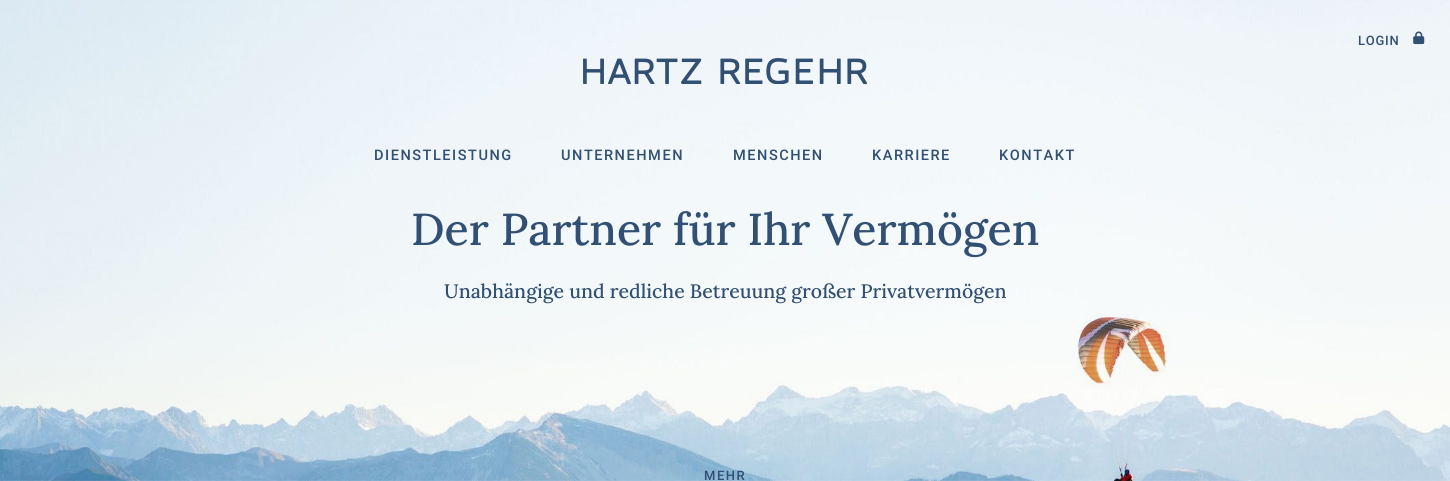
import math
import cairocffi as cairo

surface = cairo.ImageSurface(cairo.FORMAT_RGB24, 1450, 481)
cr = cairo.Context(surface)
options = cairo.FontOptions()
options.set_hint_metrics(cairo.HINT_METRICS_OFF)
options.set_hint_style(cairo.HINT_STYLE_NONE)
cr.set_font_options(options)
cr.set_miter_limit(4)


def use_color(code):
    cr.set_source_rgb(*(v / 255 for v in bytes.fromhex(code[-6:])))


def spaced_text(x, y, s, letter, word):
    cr.move_to(x, y)
    for ch in s:
        cr.show_text(ch)
        cr.rel_move_to(letter + word * (ch == ' '), 0)


def picture(path, x, y, w, h):
    cr.save()
    cr.set_source_surface(cairo.ImageSurface.create_from_png(path), x, y)
    cr.rectangle(x, y, w, h)
    cr.fill()
    cr.restore()


use_color("#ffffff")
cr.paint()
picture("img1.png", 0, 0, 1450, 481)
cr.select_font_face("Roboto Medium")
cr.set_font_size(13)
use_color("#325073")
spaced_text(1358, 45, "LOGIN", 0.75, 0)
picture("img2.png", 1413, 31, 12, 14)
picture("img3.png", 583, 58, 284, 26)
cr.set_font_size(14.6)
spaced_text(374, 160, "DIENSTLEISTUNG", 1.5, 0)
spaced_text(561, 160, "UNTERNEHMEN", 1.5, 0)
spaced_text(733, 160, "MENSCHEN", 1.5, 0)
spaced_text(872, 160, "KARRIERE", 1.5, 0)
spaced_text(999, 160, "KONTAKT", 1.5, 0)
cr.select_font_face("Lora Medium")
cr.set_font_size(44.75)
cr.move_to(411, 245)
cr.show_text("Der Partner für Ihr Vermögen")
cr.set_font_size(19.5)
cr.move_to(444, 298)
cr.show_text("Unabhängige und redliche Betreuung großer Privatvermögen")
cr.select_font_face("Roboto Medium")
cr.set_font_size(13)
spaced_text(704, 480, "MEHR", 1.5, 0)
surface.write_to_png("result.png")
